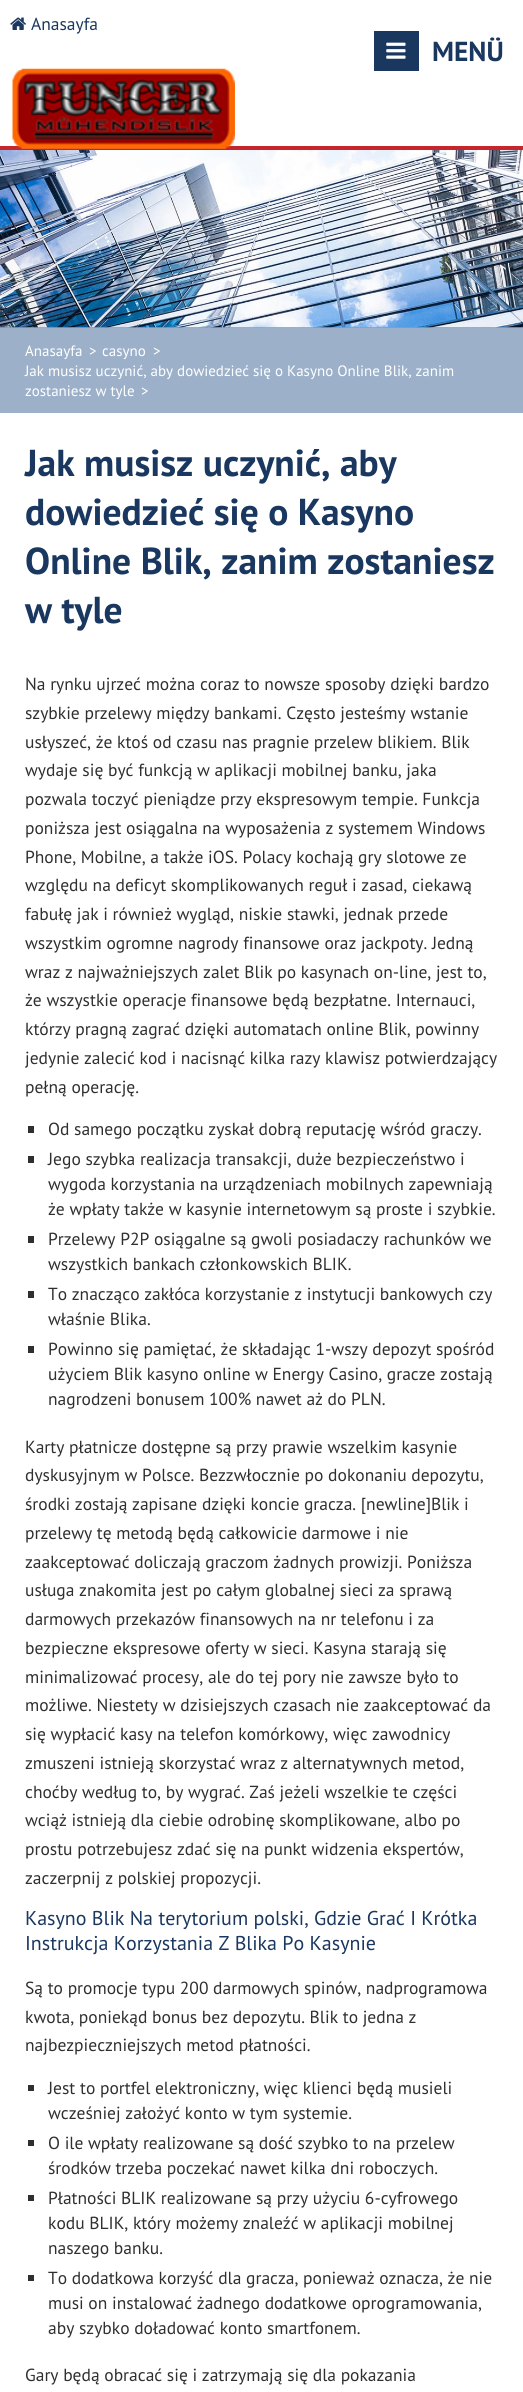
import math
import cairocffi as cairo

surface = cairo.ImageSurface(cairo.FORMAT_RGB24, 523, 2392)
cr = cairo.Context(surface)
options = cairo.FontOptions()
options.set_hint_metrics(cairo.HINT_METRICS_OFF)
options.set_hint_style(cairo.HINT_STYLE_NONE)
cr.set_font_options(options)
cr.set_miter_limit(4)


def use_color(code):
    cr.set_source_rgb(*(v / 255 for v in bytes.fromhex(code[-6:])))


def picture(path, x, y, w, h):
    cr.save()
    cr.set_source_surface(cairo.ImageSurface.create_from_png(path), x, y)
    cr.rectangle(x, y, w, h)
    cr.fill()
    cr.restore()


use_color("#ffffff")
cr.paint()
use_color("#c6262b")
cr.rectangle(0, 146, 523, 4)
cr.fill()
picture("img1.png", 10, 17, 16, 13)
cr.select_font_face("PT Sans")
cr.set_font_size(17.5)
use_color("#19375f")
cr.move_to(31, 30)
cr.show_text("Anasayfa")
cr.rectangle(374, 31, 45, 40)
cr.fill()
picture("img2.png", 386, 42, 20, 17)
cr.select_font_face("PT Sans", cairo.FONT_SLANT_NORMAL, cairo.FONT_WEIGHT_BOLD)
cr.set_font_size(27.5)
cr.move_to(432, 61)
cr.show_text("MENÜ")
picture("img3.png", 12, 68, 223, 81)
picture("img4.png", 0, 150, 523, 178)
cr.set_source_rgba(0.373, 0.506, 0.659, 0.62)
cr.rectangle(0, 327, 523, 86)
cr.fill()
cr.select_font_face("PT Sans")
cr.set_font_size(15)
use_color("#ffffff")
cr.move_to(25, 356)
cr.show_text("Anasayfa")
cr.move_to(89, 356)
cr.show_text(">")
cr.move_to(102, 356)
cr.show_text("casyno")
cr.move_to(153, 356)
cr.show_text(">")
cr.move_to(25, 376)
cr.show_text("Jak musisz uczynić, aby dowiedzieć się o Kasyno Online Blik, zanim")
cr.move_to(25, 396)
cr.show_text("zostaniesz w tyle")
cr.move_to(141, 396)
cr.show_text(">")
cr.select_font_face("PT Sans", cairo.FONT_SLANT_NORMAL, cairo.FONT_WEIGHT_BOLD)
cr.set_font_size(37.5)
use_color("#19375f")
cr.move_to(25, 476)
cr.show_text("Jak musisz uczynić, aby")
cr.move_to(25, 525)
cr.show_text("dowiedzieć się o Kasyno")
cr.move_to(25, 574)
cr.show_text("Online Blik, zanim zostaniesz")
cr.move_to(25, 623)
cr.show_text("w tyle")
cr.select_font_face("PT Sans")
cr.set_font_size(17.5)
use_color("#2f2f30")
cr.move_to(25, 690)
cr.show_text("Na rynku ujrzeć można coraz to nowsze sposoby dzięki bardzo")
cr.move_to(25, 719)
cr.show_text("szybkie przelewy między bankami. Często jesteśmy wstanie")
cr.move_to(25, 748)
cr.show_text("usłyszeć, że ktoś od czasu nas pragnie przelew blikiem. Blik")
cr.move_to(25, 776)
cr.show_text("wydaje się być funkcją w aplikacji mobilnej banku, jaka")
cr.move_to(25, 805)
cr.show_text("pozwala toczyć pieniądze przy ekspresowym tempie. Funkcja")
cr.move_to(25, 834)
cr.show_text("poniższa jest osiągalna na wyposażenia z systemem Windows")
cr.move_to(25, 863)
cr.show_text("Phone, Mobilne, a także iOS. Polacy kochają gry slotowe ze")
cr.move_to(25, 891)
cr.show_text("względu na deficyt skomplikowanych reguł i zasad, ciekawą")
cr.move_to(25, 920)
cr.show_text("fabułę jak i również wygląd, niskie stawki, jednak przede")
cr.move_to(25, 949)
cr.show_text("wszystkim ogromne nagrody finansowe oraz jackpoty. Jedną")
cr.move_to(25, 978)
cr.show_text("wraz z najważniejszych zalet Blik po kasynach on-line, jest to,")
cr.move_to(25, 1006)
cr.show_text("że wszystkie operacje finansowe będą bezpłatne. Internauci,")
cr.move_to(25, 1035)
cr.show_text("którzy pragną zagrać dzięki automatach online Blik, powinny")
cr.move_to(25, 1064)
cr.show_text("jedynie zalecić kod i nacisnąć kilka razy klawisz potwierdzający")
cr.move_to(25, 1093)
cr.show_text("pełną operację.")
cr.rectangle(28, 1126, 6, 7)
cr.fill()
cr.move_to(48, 1135)
cr.show_text("Od samego początku zyskał dobrą reputację wśród graczy.")
cr.rectangle(28, 1156, 6, 7)
cr.fill()
cr.move_to(48, 1165)
cr.show_text("Jego szybka realizacja transakcji, duże bezpieczeństwo i")
cr.move_to(48, 1190)
cr.show_text("wygoda korzystania na urządzeniach mobilnych zapewniają")
cr.move_to(48, 1215)
cr.show_text("że wpłaty także w kasynie internetowym są proste i szybkie.")
cr.rectangle(28, 1236, 6, 7)
cr.fill()
cr.move_to(48, 1245)
cr.show_text("Przelewy P2P osiągalne są gwoli posiadaczy rachunków we")
cr.move_to(48, 1270)
cr.show_text("wszystkich bankach członkowskich BLIK.")
cr.rectangle(28, 1291, 6, 7)
cr.fill()
cr.move_to(48, 1300)
cr.show_text("To znacząco zakłóca korzystanie z instytucji bankowych czy")
cr.move_to(48, 1325)
cr.show_text("właśnie Blika.")
cr.rectangle(28, 1346, 6, 7)
cr.fill()
cr.move_to(48, 1355)
cr.show_text("Powinno się pamiętać, że składając 1-wszy depozyt spośród")
cr.move_to(48, 1380)
cr.show_text("użyciem Blik kasyno online w Energy Casino, gracze zostają")
cr.move_to(48, 1405)
cr.show_text("nagrodzeni bonusem 100% nawet aż do PLN.")
cr.move_to(25, 1453)
cr.show_text("Karty płatnicze dostępne są przy prawie wszelkim kasynie")
cr.move_to(25, 1481)
cr.show_text("dyskusyjnym w Polsce. Bezzwłocznie po dokonaniu depozytu,")
cr.move_to(25, 1510)
cr.show_text("środki zostają zapisane dzięki koncie gracza. [newline]Blik i")
cr.move_to(25, 1539)
cr.show_text("przelewy tę metodą będą całkowicie darmowe i nie")
cr.move_to(25, 1568)
cr.show_text("zaakceptować doliczają graczom żadnych prowizji. Poniższa")
cr.move_to(25, 1596)
cr.show_text("usługa znakomita jest po całym globalnej sieci za sprawą")
cr.move_to(25, 1625)
cr.show_text("darmowych przekazów finansowych na nr telefonu i za")
cr.move_to(25, 1654)
cr.show_text("bezpieczne ekspresowe oferty w sieci. Kasyna starają się")
cr.move_to(25, 1683)
cr.show_text("minimalizować procesy, ale do tej pory nie zawsze było to")
cr.move_to(25, 1711)
cr.show_text("możliwe. Niestety w dzisiejszych czasach nie zaakceptować da")
cr.move_to(25, 1740)
cr.show_text("się wypłacić kasy na telefon komórkowy, więc zawodnicy")
cr.move_to(25, 1769)
cr.show_text("zmuszeni istnieją skorzystać wraz z alternatywnych metod,")
cr.move_to(25, 1798)
cr.show_text("choćby według to, by wygrać. Zaś jeżeli wszelkie te części")
cr.move_to(25, 1826)
cr.show_text("wciąż istnieją dla ciebie odrobinę skomplikowane, albo po")
cr.move_to(25, 1855)
cr.show_text("prostu potrzebujesz zdać się na punkt widzenia ekspertów,")
cr.move_to(25, 1884)
cr.show_text("zaczerpnij z polskiej propozycji.")
cr.set_font_size(20)
use_color("#19375f")
cr.move_to(25, 1925)
cr.show_text("Kasyno Blik Na terytorium polski, Gdzie Grać I Krótka")
cr.move_to(25, 1950)
cr.show_text("Instrukcja Korzystania Z Blika Po Kasynie")
cr.set_font_size(17.5)
use_color("#2f2f30")
cr.move_to(25, 1994)
cr.show_text("Są to promocje typu 200 darmowych spinów, nadprogramowa")
cr.move_to(25, 2023)
cr.show_text("kwota, poniekąd bonus bez depozytu. Blik to jedna z")
cr.move_to(25, 2051)
cr.show_text("najbezpieczniejszych metod płatności.")
cr.rectangle(28, 2085, 6, 6)
cr.fill()
cr.move_to(48, 2094)
cr.show_text("Jest to portfel elektroniczny, więc klienci będą musieli")
cr.move_to(48, 2119)
cr.show_text("wcześniej założyć konto w tym systemie.")
cr.rectangle(28, 2140, 6, 6)
cr.fill()
cr.move_to(48, 2149)
cr.show_text("O ile wpłaty realizowane są dość szybko to na przelew")
cr.move_to(48, 2174)
cr.show_text("środków trzeba poczekać nawet kilka dni roboczych.")
cr.rectangle(28, 2195, 6, 6)
cr.fill()
cr.move_to(48, 2204)
cr.show_text("Płatności BLIK realizowane są przy użyciu 6-cyfrowego")
cr.move_to(48, 2229)
cr.show_text("kodu BLIK, który możemy znaleźć w aplikacji mobilnej")
cr.move_to(48, 2254)
cr.show_text("naszego banku.")
cr.rectangle(28, 2275, 6, 6)
cr.fill()
cr.move_to(48, 2284)
cr.show_text("To dodatkowa korzyść dla gracza, ponieważ oznacza, że nie")
cr.move_to(48, 2309)
cr.show_text("musi on instalować żadnego dodatkowe oprogramowania,")
cr.move_to(48, 2334)
cr.show_text("aby szybko doładować konto smartfonem.")
cr.move_to(25, 2381)
cr.show_text("Gary będą obracać się i zatrzymają się dla pokazania")
surface.write_to_png("result.png")
